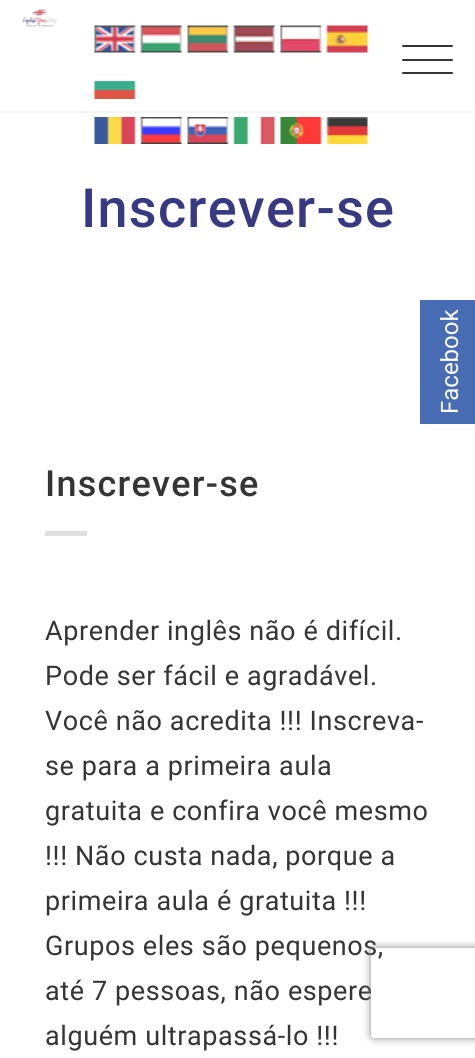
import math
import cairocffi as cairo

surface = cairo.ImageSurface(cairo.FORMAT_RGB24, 475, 1058)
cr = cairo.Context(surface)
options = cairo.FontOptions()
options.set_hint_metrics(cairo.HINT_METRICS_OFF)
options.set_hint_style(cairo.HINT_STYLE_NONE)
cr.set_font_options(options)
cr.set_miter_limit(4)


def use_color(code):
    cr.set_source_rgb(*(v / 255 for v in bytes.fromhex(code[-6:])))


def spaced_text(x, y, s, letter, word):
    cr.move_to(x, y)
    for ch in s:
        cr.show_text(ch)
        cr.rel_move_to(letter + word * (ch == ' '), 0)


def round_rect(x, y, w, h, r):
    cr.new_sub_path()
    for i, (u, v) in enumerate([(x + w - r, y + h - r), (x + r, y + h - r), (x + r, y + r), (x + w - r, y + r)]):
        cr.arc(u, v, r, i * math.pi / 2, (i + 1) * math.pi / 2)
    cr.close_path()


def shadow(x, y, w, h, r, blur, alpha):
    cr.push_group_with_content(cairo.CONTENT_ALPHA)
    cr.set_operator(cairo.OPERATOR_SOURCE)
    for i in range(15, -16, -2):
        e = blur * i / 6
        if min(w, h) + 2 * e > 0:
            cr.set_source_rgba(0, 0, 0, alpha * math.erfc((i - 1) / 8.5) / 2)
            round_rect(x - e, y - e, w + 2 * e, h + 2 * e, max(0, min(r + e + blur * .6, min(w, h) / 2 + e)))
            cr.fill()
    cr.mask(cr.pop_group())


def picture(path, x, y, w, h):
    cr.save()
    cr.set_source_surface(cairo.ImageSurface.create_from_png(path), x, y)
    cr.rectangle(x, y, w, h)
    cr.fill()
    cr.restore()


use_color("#ffffff")
cr.paint()
use_color("#f4f4f4")
cr.rectangle(0, 111, 475, 2)
cr.fill()
picture("img1.png", 22, 9, 35, 18)
picture("img2.png", 94, 25, 42, 28)
picture("img3.png", 140, 25, 42, 28)
picture("img4.png", 187, 25, 42, 28)
picture("img5.png", 233, 25, 42, 28)
picture("img6.png", 280, 25, 42, 28)
picture("img7.png", 326, 25, 42, 28)
picture("img8.png", 94, 80, 42, 19)
picture("img9.png", 94, 117, 42, 27)
picture("img10.png", 140, 117, 42, 27)
picture("img11.png", 187, 117, 42, 27)
picture("img12.png", 233, 117, 42, 27)
picture("img13.png", 280, 117, 42, 27)
picture("img14.png", 326, 117, 42, 27)
use_color("#353535")
round_rect(402, 45, 51, 2, 1)
cr.fill()
round_rect(402, 59, 51, 2, 1)
cr.fill()
round_rect(402, 72, 51, 2, 1)
cr.fill()
cr.select_font_face("Roboto Medium")
cr.set_font_size(54)
use_color("#373983")
spaced_text(81, 227, "Inscrever-se", 1.25, 0)
cr.set_font_size(36)
use_color("#353535")
spaced_text(45, 496, "Inscrever-se", 1.25, 0)
use_color("#dfdfdf")
cr.rectangle(45, 531, 42, 5)
cr.fill()
cr.select_font_face("Roboto")
cr.set_font_size(27)
use_color("#353535")
spaced_text(45, 640, "Aprender inglês não é difícil.", 0.6, 0)
spaced_text(45, 685, "Pode ser fácil e agradável.", 0.6, 0)
spaced_text(45, 730, "Você não acredita !!! Inscreva-", 0.6, 0)
spaced_text(45, 775, "se para a primeira aula", 0.6, 0)
spaced_text(45, 820, "gratuita e confira você mesmo", 0.6, 0)
spaced_text(45, 865, "!!! Não custa nada, porque a", 0.6, 0)
spaced_text(45, 910, "primeira aula é gratuita !!!", 0.6, 0)
spaced_text(45, 955, "Grupos eles são pequenos,", 0.6, 0)
spaced_text(45, 1000, "até 7 pessoas, não espere", 0.6, 0)
spaced_text(45, 1045, "alguém ultrapassá-lo !!!", 0.6, 0)
use_color("#486cb4")
cr.rectangle(420, 300, 55, 124)
cr.fill()
cr.set_font_size(24)
use_color("#ffffff")
cr.save()
cr.translate(458, 414)
cr.rotate(-90 * math.pi / 180)
cr.move_to(0, 0)
cr.show_text("Facebook")
cr.restore()
cr.save()
cr.set_fill_rule(cairo.FILL_RULE_EVEN_ODD)
cr.new_path()
cr.move_to(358, 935)
cr.line_to(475, 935)
cr.line_to(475, 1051)
cr.line_to(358, 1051)
cr.close_path()
cr.move_to(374, 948)
cr.line_to(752, 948)
cr.curve_to(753.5, 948, 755, 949.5, 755, 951)
cr.line_to(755, 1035)
cr.curve_to(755, 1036.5, 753.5, 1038, 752, 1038)
cr.line_to(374, 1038)
cr.curve_to(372.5, 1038, 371, 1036.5, 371, 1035)
cr.line_to(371, 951)
cr.curve_to(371, 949.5, 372.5, 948, 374, 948)
cr.close_path()
cr.clip()
use_color("#848484")
shadow(371, 948, 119, 90, 3, 4, 1)
cr.restore()
surface.write_to_png("result.png")
